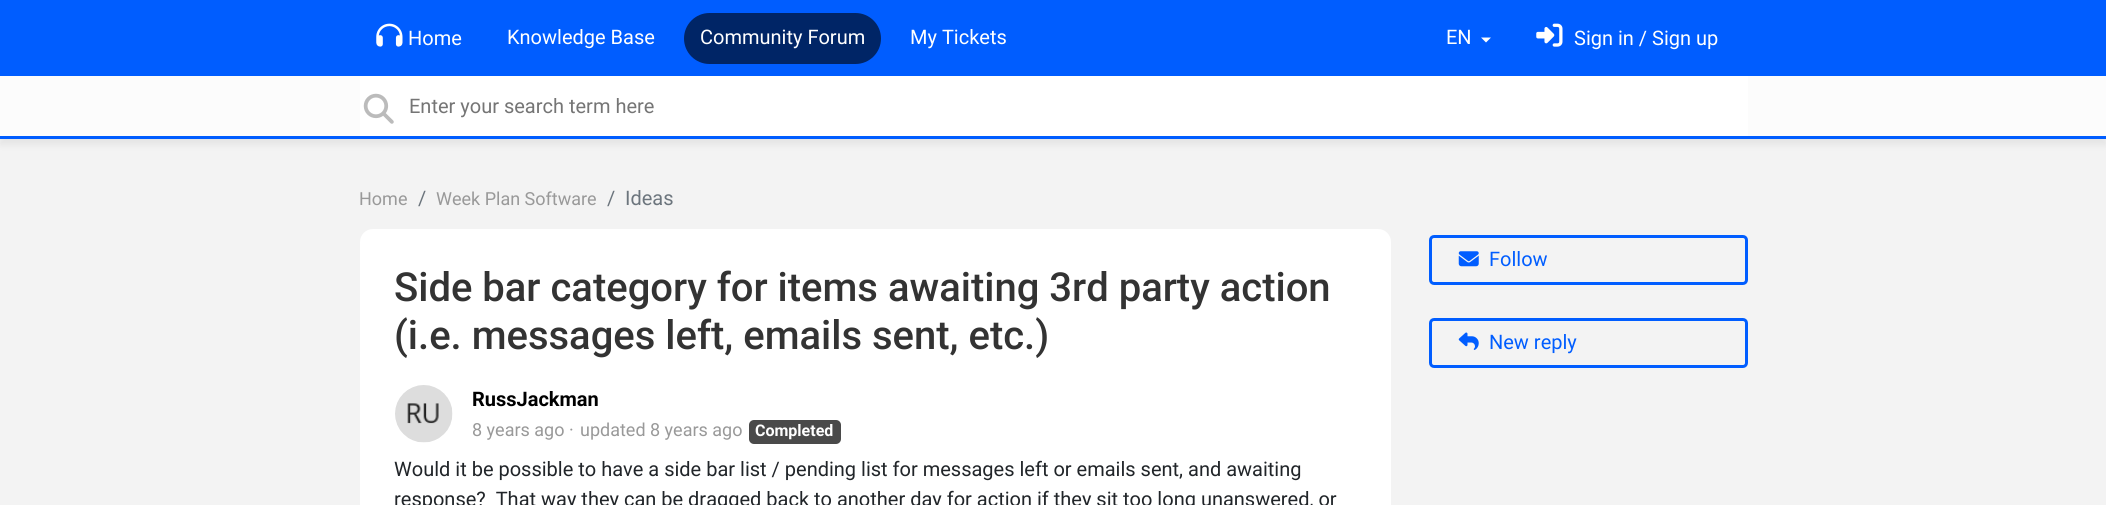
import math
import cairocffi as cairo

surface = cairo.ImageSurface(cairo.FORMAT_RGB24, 2106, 505)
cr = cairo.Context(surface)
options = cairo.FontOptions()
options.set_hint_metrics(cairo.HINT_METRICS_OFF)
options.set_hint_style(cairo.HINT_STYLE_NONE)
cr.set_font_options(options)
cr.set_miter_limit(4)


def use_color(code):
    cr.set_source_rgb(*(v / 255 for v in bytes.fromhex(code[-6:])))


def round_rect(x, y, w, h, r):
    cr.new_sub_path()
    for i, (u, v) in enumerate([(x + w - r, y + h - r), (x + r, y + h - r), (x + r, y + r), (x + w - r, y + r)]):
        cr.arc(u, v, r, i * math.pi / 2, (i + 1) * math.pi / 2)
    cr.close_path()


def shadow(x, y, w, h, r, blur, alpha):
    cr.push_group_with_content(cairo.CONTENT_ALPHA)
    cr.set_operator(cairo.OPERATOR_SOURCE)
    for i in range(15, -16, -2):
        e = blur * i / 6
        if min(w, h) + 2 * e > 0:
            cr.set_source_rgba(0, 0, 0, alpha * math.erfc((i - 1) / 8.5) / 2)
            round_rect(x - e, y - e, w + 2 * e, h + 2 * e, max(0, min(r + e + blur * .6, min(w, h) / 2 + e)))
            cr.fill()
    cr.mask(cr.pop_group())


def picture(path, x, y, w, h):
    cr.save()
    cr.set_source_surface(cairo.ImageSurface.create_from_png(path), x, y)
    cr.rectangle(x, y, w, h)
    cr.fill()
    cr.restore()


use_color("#f3f3f3")
cr.paint()
use_color("#005dff")
cr.rectangle(0, 0, 2106, 76)
cr.fill()
picture("img1.png", 376, 23, 27, 24)
cr.select_font_face("Roboto")
cr.set_font_size(20)
use_color("#ffffff")
cr.move_to(408, 45)
cr.show_text("Home")
cr.move_to(507, 44)
cr.show_text("Knowledge Base")
use_color("#002566")
round_rect(684, 13, 197, 51, 25.5)
cr.fill()
use_color("#ffffff")
cr.move_to(700, 44)
cr.show_text("Community Forum")
cr.move_to(910, 44)
cr.show_text("My Tickets")
cr.move_to(1446, 44)
cr.show_text("EN")
cr.new_path()
cr.move_to(1481, 37.5)
cr.line_to(1491, 37.5)
cr.line_to(1486, 42.5)
cr.close_path()
cr.fill()
picture("img2.png", 1536, 23, 27, 24)
cr.move_to(1574, 45)
cr.show_text("Sign in / Sign up")
use_color("#646464")
shadow(0, 83, 2106, 62, 0, 3, 0.1)
use_color("#fcfcfc")
cr.rectangle(0, 76, 2106, 60)
cr.fill()
use_color("#005dff")
cr.rectangle(0, 136, 2106, 3)
cr.fill()
use_color("#ffffff")
cr.rectangle(360, 76, 1388, 60)
cr.fill()
picture("img3.png", 363, 93, 31, 31)
use_color("#757575")
cr.move_to(409, 113)
cr.show_text("Enter your search term here")
cr.set_font_size(18)
use_color("#999999")
cr.move_to(359, 205)
cr.show_text("Home")
cr.set_font_size(20)
use_color("#6c757d")
cr.move_to(418, 205)
cr.show_text("/")
cr.set_font_size(18)
use_color("#999999")
cr.move_to(436, 205)
cr.show_text("Week Plan Software")
cr.set_font_size(20)
use_color("#6c757d")
cr.move_to(607, 205)
cr.show_text("/")
cr.move_to(625, 205)
cr.show_text("Ideas")
use_color("#ffffff")
round_rect(360, 229, 1031, 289, 13)
cr.fill()
cr.select_font_face("Roboto Medium")
cr.set_font_size(40)
use_color("#333333")
cr.move_to(394, 301)
cr.show_text("Side bar category for items awaiting 3rd party action")
cr.move_to(394, 349)
cr.show_text("(i.e. messages left, emails sent, etc.)")
picture("img4.png", 395, 385, 58, 58)
cr.select_font_face("Roboto", cairo.FONT_SLANT_NORMAL, cairo.FONT_WEIGHT_BOLD)
cr.set_font_size(20)
use_color("#000000")
cr.move_to(472, 406)
cr.show_text("RussJackman")
cr.select_font_face("Roboto")
cr.set_font_size(18)
use_color("#999999")
cr.move_to(472, 436)
cr.show_text("8 years ago")
cr.move_to(569, 436)
cr.show_text("·")
cr.move_to(580, 436)
cr.show_text("updated 8 years ago")
use_color("#4a4a4a")
round_rect(749, 420, 92, 24, 5)
cr.fill()
cr.select_font_face("Roboto", cairo.FONT_SLANT_NORMAL, cairo.FONT_WEIGHT_BOLD)
cr.set_font_size(16)
use_color("#ffffff")
cr.move_to(755, 436)
cr.show_text("Completed")
cr.select_font_face("Roboto")
cr.set_font_size(20)
use_color("#212529")
cr.move_to(394, 476)
cr.show_text("Would it be possible to have a side bar list / pending list for messages left or emails sent, and awaiting")
cr.move_to(394, 506)
cr.show_text("response?  That way they can be dragged back to another day for action if they sit too long unanswered, or")
round_rect(1430.5, 236.5, 316, 47, 3.5)
use_color("#005dff")
cr.set_line_width(3)
cr.stroke()
picture("img5.png", 1458, 251, 21, 16)
cr.move_to(1489, 266)
cr.show_text("Follow")
round_rect(1430.5, 319.5, 316, 47, 3.5)
cr.stroke()
picture("img6.png", 1458, 332, 21, 18)
cr.move_to(1489, 349)
cr.show_text("New reply")
surface.write_to_png("result.png")
